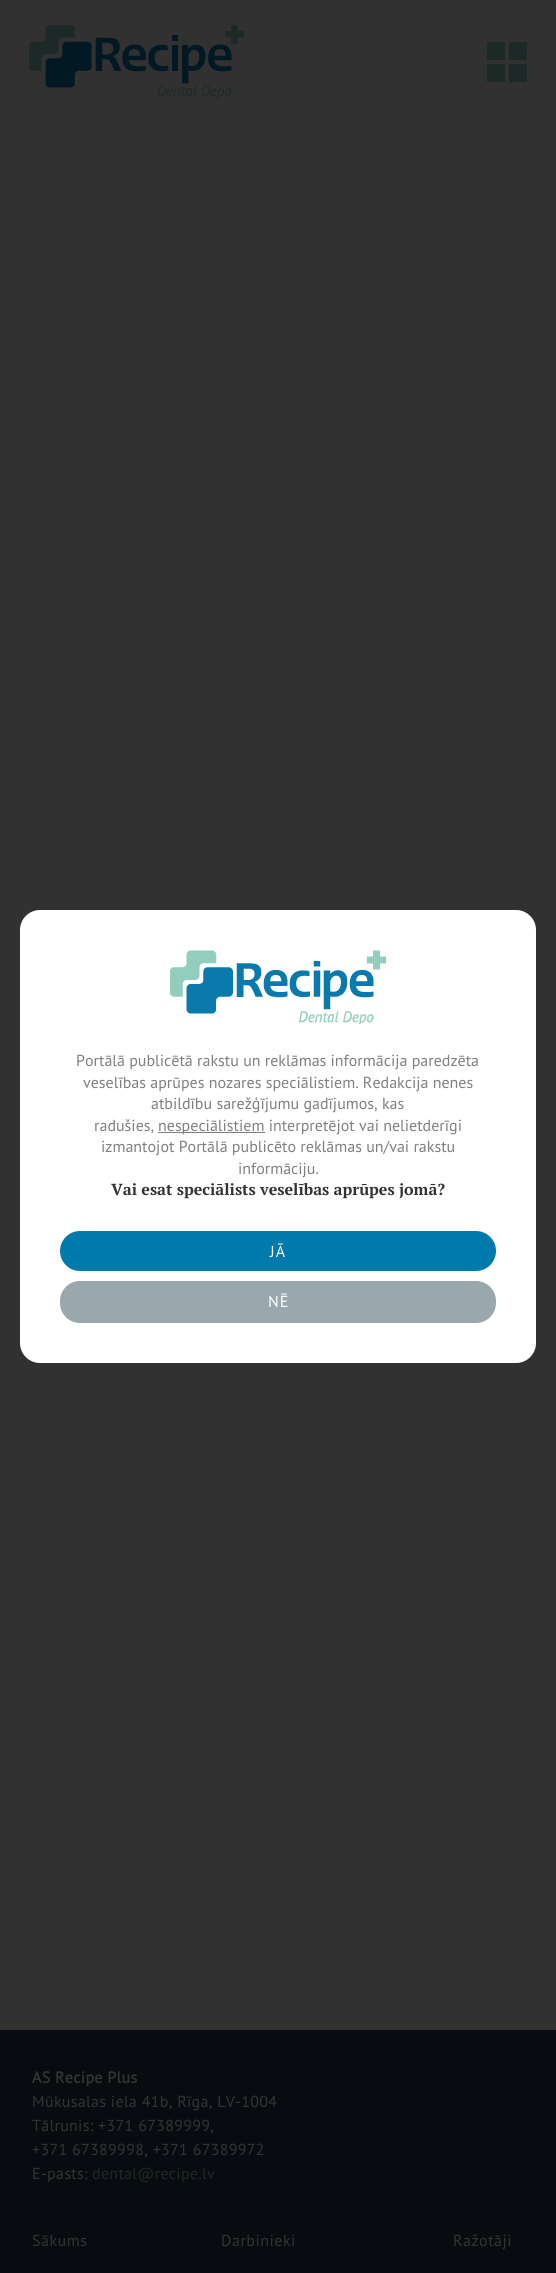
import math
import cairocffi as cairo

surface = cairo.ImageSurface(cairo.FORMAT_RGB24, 556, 2273)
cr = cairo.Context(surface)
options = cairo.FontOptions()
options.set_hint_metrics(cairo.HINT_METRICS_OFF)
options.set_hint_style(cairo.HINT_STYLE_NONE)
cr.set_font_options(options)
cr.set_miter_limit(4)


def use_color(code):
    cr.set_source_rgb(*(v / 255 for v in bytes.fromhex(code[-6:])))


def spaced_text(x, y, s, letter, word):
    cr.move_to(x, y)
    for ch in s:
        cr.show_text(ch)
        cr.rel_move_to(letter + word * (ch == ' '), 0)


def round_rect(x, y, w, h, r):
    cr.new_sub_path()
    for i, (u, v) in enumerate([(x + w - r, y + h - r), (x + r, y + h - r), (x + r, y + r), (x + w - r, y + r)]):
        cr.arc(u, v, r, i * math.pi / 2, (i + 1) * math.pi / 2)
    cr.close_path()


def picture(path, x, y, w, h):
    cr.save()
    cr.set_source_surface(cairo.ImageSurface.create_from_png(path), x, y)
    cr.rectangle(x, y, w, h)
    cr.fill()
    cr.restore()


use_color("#313131")
cr.paint()
picture("img1.png", 29, 25, 215, 74)
use_color("#1d2926")
cr.rectangle(487, 42, 18, 18)
cr.fill()
cr.rectangle(509, 42, 18, 18)
cr.fill()
cr.rectangle(487, 64, 18, 18)
cr.fill()
cr.rectangle(509, 64, 18, 18)
cr.fill()
use_color("#ffffff")
round_rect(20, 910, 516, 453, 20)
cr.fill()
picture("img2.png", 170, 950, 216, 74)
cr.select_font_face("PT Sans")
cr.set_font_size(16)
use_color("#808080")
cr.move_to(76, 1066)
cr.show_text("Portālā publicētā rakstu un reklāmas informācija paredzēta")
cr.move_to(83, 1088)
cr.show_text("veselības aprūpes nozares speciālistiem. Redakcija nenes")
cr.move_to(151, 1109)
cr.show_text("atbildību sarežģījumu gadījumos, kas")
cr.move_to(94, 1131)
cr.show_text("radušies,")
cr.rectangle(158, 1132, 107, 1)
cr.fill()
cr.move_to(158, 1131)
cr.show_text("nespeciālistiem interpretējot vai nelietderīgi")
cr.move_to(101, 1152)
cr.show_text("izmantojot Portālā publicēto reklāmas un/vai rakstu")
cr.move_to(238, 1174)
cr.show_text("informāciju.")
cr.select_font_face("PT Serif", cairo.FONT_SLANT_NORMAL, cairo.FONT_WEIGHT_BOLD)
use_color("#333333")
cr.move_to(111, 1195)
cr.show_text("Vai esat speciālists veselības aprūpes jomā?")
use_color("#0079ad")
round_rect(60, 1231, 436, 40, 20)
cr.fill()
cr.select_font_face("PT Sans")
use_color("#ffffff")
spaced_text(270, 1257, "JĀ", 1, 0)
use_color("#9aa7ad")
round_rect(60, 1281, 436, 42, 20)
cr.fill()
use_color("#ffffff")
spaced_text(268, 1307, "NĒ", 1, 0)
use_color("#080b0f")
cr.rectangle(0, 2030, 556, 243)
cr.fill()
cr.select_font_face("PT Sans", cairo.FONT_SLANT_NORMAL, cairo.FONT_WEIGHT_BOLD)
use_color("#333333")
spaced_text(32, 2083, "AS Recipe Plus", 0.3, 0)
cr.select_font_face("PT Sans")
spaced_text(32, 2107, "Mūkusalas iela 41b, Rīga, LV-1004", 0.3, 0)
spaced_text(32, 2131, "Tālrunis: +371 67389999,", 0.3, 0)
spaced_text(32, 2155, "+371 67389998, +371 67389972", 0.3, 0)
spaced_text(32, 2179, "E-pasts:", 0.3, 0)
use_color("#1d2926")
spaced_text(92, 2179, "dental@recipe.lv", 0.3, 0)
use_color("#333333")
spaced_text(32, 2246, "Sākums", 0.5, 0)
spaced_text(221, 2246, "Darbinieki", 0.5, 0)
spaced_text(453, 2246, "Ražotāji", 0.5, 0)
surface.write_to_png("result.png")
